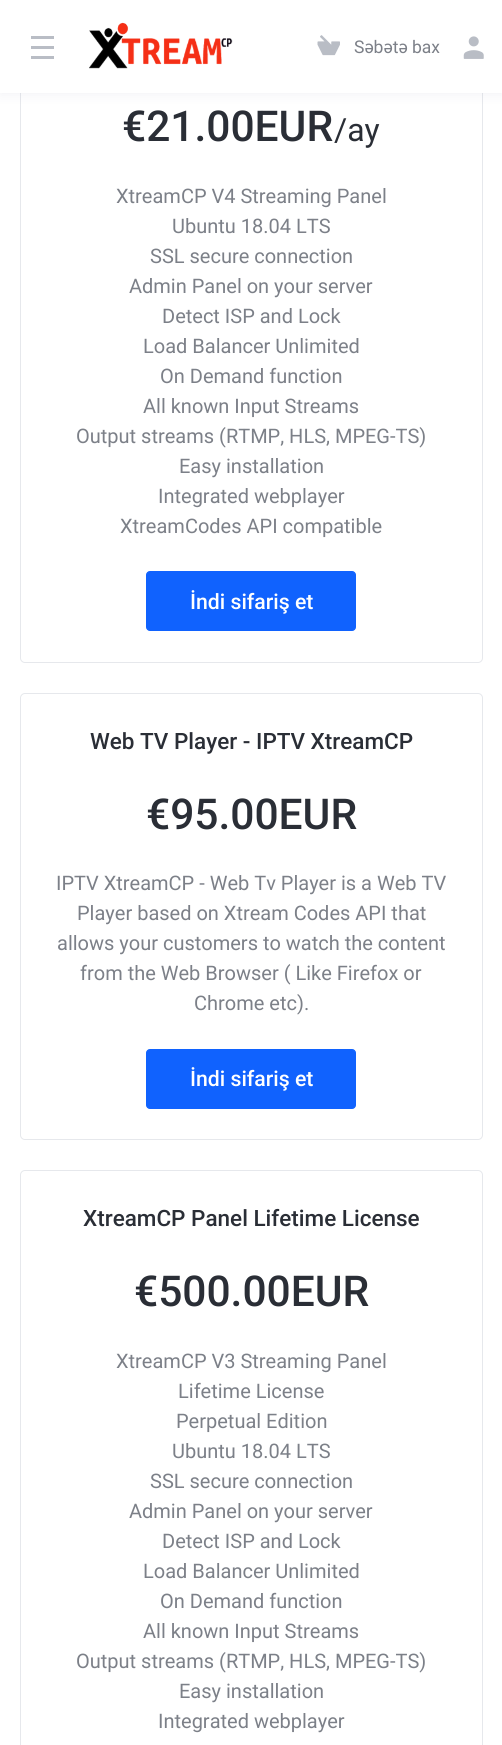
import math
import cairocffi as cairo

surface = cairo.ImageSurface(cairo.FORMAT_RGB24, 502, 1745)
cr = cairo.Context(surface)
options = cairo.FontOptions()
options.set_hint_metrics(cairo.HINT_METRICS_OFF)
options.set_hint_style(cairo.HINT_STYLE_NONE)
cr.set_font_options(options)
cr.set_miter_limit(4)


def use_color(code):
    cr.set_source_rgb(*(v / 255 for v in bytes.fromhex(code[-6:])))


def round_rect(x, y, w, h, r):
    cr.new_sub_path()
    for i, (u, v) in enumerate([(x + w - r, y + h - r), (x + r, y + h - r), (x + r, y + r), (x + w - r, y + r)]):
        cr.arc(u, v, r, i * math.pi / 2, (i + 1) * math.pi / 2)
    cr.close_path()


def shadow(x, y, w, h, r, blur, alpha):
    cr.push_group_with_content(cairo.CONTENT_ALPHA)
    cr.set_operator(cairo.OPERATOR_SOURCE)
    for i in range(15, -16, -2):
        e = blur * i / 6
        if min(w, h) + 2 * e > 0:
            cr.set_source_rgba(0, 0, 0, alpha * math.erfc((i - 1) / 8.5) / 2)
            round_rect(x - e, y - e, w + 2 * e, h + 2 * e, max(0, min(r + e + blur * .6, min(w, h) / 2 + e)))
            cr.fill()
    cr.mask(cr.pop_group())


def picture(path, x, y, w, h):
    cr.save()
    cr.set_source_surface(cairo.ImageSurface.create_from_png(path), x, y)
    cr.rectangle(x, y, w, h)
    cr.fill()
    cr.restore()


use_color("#ffffff")
cr.paint()
round_rect(20.5, 5.5, 462, 657, 4.5)
use_color("#e6e8ec")
cr.set_line_width(1)
cr.stroke()
use_color("#000e45")
shadow(0, 3, 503, 92, 0, 6, 0.05)
use_color("#ffffff")
cr.rectangle(0, 0, 502, 93)
cr.fill()
use_color("#b9bdc5")
cr.rectangle(31, 36, 23, 3)
cr.fill()
cr.rectangle(31, 46, 23, 3)
cr.fill()
cr.rectangle(31, 56, 23, 3)
cr.fill()
picture("img1.png", 89, 22, 144, 47)
picture("img2.png", 317, 35, 23, 21)
cr.select_font_face("Roboto")
cr.set_font_size(17.5)
use_color("#7c8088")
cr.move_to(354, 53)
cr.show_text("Səbətə bax")
picture("img3.png", 463, 36, 21, 23)
cr.select_font_face("Roboto Medium")
cr.set_font_size(42.5)
use_color("#2a2e36")
cr.move_to(122, 141)
cr.show_text("€21.00EUR")
cr.select_font_face("Roboto")
cr.set_font_size(32)
cr.move_to(334, 141)
cr.show_text("/ay")
cr.set_font_size(20)
use_color("#7c8088")
cr.move_to(116, 203)
cr.show_text("XtreamCP V4 Streaming Panel")
cr.move_to(172, 233)
cr.show_text("Ubuntu 18.04 LTS")
cr.move_to(150, 263)
cr.show_text("SSL secure connection")
cr.move_to(129, 293)
cr.show_text("Admin Panel on your server")
cr.move_to(162, 323)
cr.show_text("Detect ISP and Lock")
cr.move_to(143, 353)
cr.show_text("Load Balancer Unlimited")
cr.move_to(160, 383)
cr.show_text("On Demand function")
cr.move_to(143, 413)
cr.show_text("All known Input Streams")
cr.move_to(76, 443)
cr.show_text("Output streams (RTMP, HLS, MPEG-TS)")
cr.move_to(179, 473)
cr.show_text("Easy installation")
cr.move_to(158, 503)
cr.show_text("Integrated webplayer")
cr.move_to(120, 533)
cr.show_text("XtreamCodes API compatible")
use_color("#1062fe")
round_rect(146.5, 571.5, 209, 59, 3.5)
cr.fill_preserve()
cr.stroke()
cr.select_font_face("Roboto Medium")
cr.set_font_size(21.25)
use_color("#ffffff")
cr.move_to(190, 609)
cr.show_text("İndi sifariş et")
round_rect(20.5, 693.5, 462, 446, 4.5)
use_color("#e6e8ec")
cr.stroke()
cr.set_font_size(22.5)
use_color("#2a2e36")
cr.move_to(90, 749)
cr.show_text("Web TV Player - IPTV XtreamCP")
cr.set_font_size(42.5)
cr.move_to(146, 829)
cr.show_text("€95.00EUR")
cr.select_font_face("Roboto")
cr.set_font_size(20)
use_color("#7c8088")
cr.move_to(56, 890)
cr.show_text("IPTV XtreamCP - Web Tv Player is a Web TV")
cr.move_to(77, 920)
cr.show_text("Player based on Xtream Codes API that")
cr.move_to(57, 950)
cr.show_text("allows your customers to watch the content")
cr.move_to(80, 980)
cr.show_text("from the Web Browser ( Like Firefox or")
cr.move_to(194, 1010)
cr.show_text("Chrome etc).")
use_color("#1062fe")
round_rect(146.5, 1049.5, 209, 59, 3.5)
cr.fill_preserve()
cr.stroke()
cr.select_font_face("Roboto Medium")
cr.set_font_size(21.25)
use_color("#ffffff")
cr.move_to(190, 1086)
cr.show_text("İndi sifariş et")
round_rect(20.5, 1170.5, 462, 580, 4.5)
use_color("#e6e8ec")
cr.stroke()
cr.set_font_size(22.5)
use_color("#2a2e36")
cr.move_to(83, 1226)
cr.show_text("XtreamCP Panel Lifetime License")
cr.set_font_size(42.5)
cr.move_to(134, 1306)
cr.show_text("€500.00EUR")
cr.select_font_face("Roboto")
cr.set_font_size(20)
use_color("#7c8088")
cr.move_to(116, 1368)
cr.show_text("XtreamCP V3 Streaming Panel")
cr.move_to(178, 1398)
cr.show_text("Lifetime License")
cr.move_to(176, 1428)
cr.show_text("Perpetual Edition")
cr.move_to(172, 1458)
cr.show_text("Ubuntu 18.04 LTS")
cr.move_to(150, 1488)
cr.show_text("SSL secure connection")
cr.move_to(129, 1518)
cr.show_text("Admin Panel on your server")
cr.move_to(162, 1548)
cr.show_text("Detect ISP and Lock")
cr.move_to(143, 1578)
cr.show_text("Load Balancer Unlimited")
cr.move_to(160, 1608)
cr.show_text("On Demand function")
cr.move_to(143, 1638)
cr.show_text("All known Input Streams")
cr.move_to(76, 1668)
cr.show_text("Output streams (RTMP, HLS, MPEG-TS)")
cr.move_to(179, 1698)
cr.show_text("Easy installation")
cr.move_to(158, 1728)
cr.show_text("Integrated webplayer")
surface.write_to_png("result.png")
